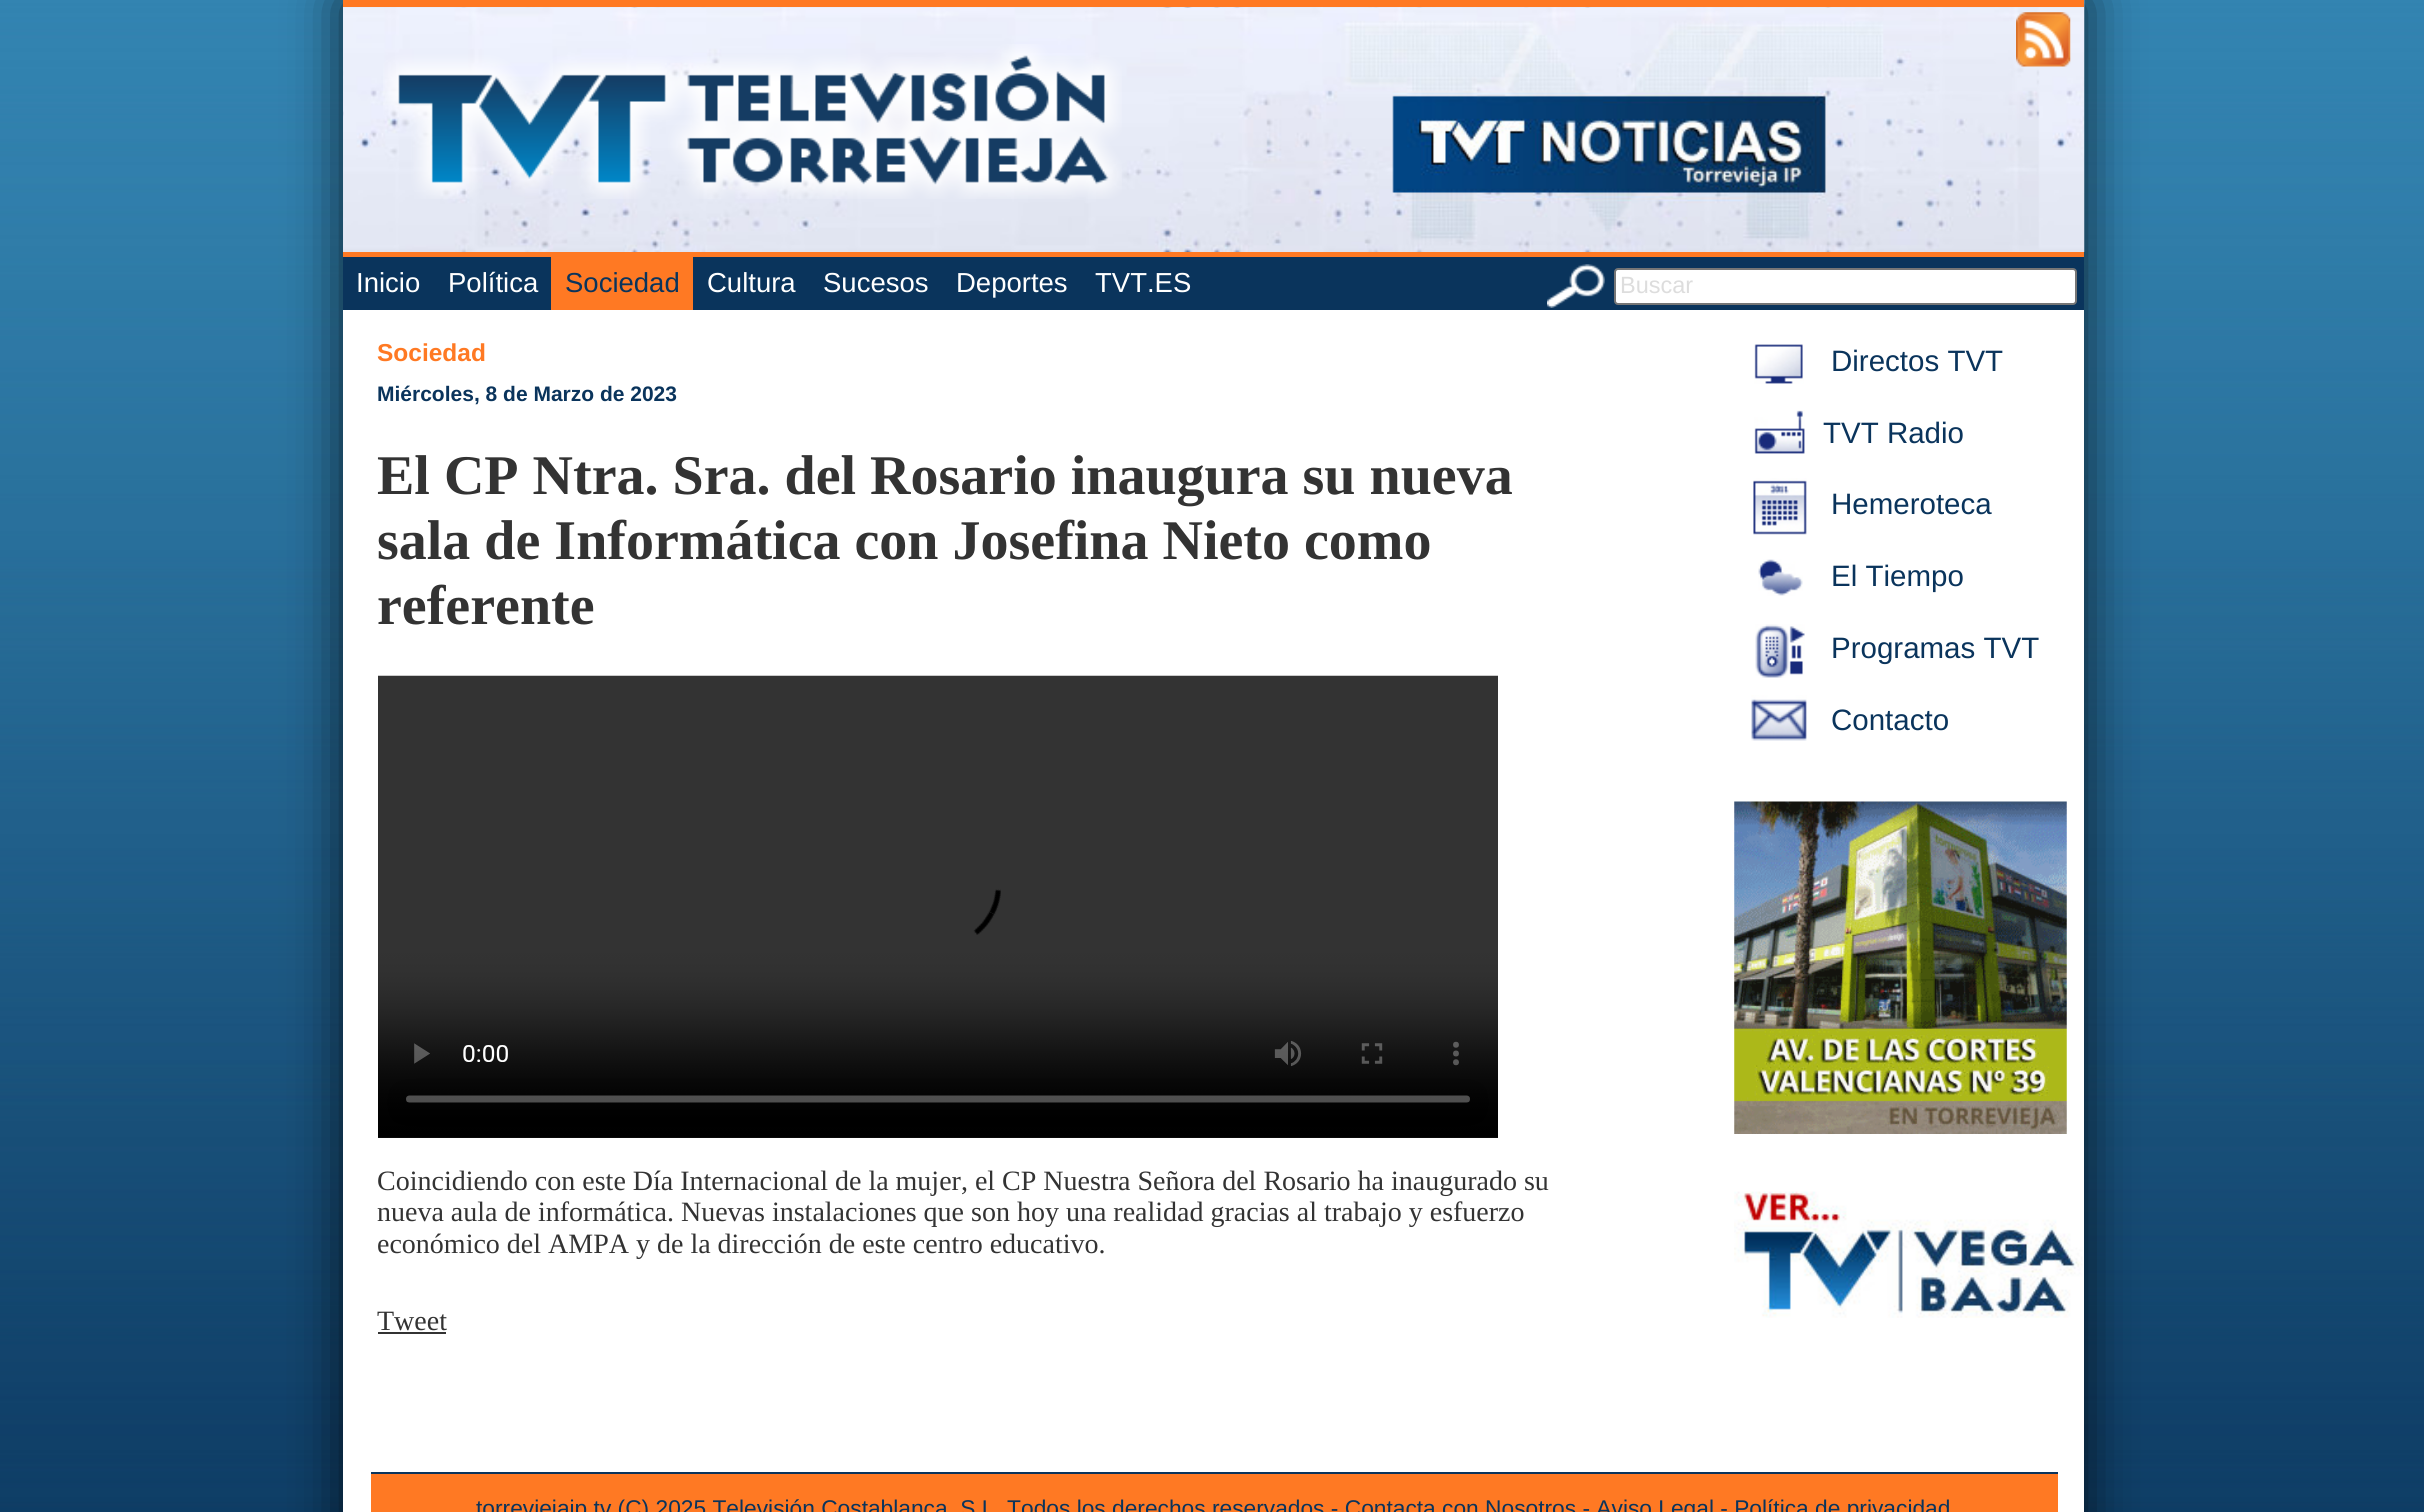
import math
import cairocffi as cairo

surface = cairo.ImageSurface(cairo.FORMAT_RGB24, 2424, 1512)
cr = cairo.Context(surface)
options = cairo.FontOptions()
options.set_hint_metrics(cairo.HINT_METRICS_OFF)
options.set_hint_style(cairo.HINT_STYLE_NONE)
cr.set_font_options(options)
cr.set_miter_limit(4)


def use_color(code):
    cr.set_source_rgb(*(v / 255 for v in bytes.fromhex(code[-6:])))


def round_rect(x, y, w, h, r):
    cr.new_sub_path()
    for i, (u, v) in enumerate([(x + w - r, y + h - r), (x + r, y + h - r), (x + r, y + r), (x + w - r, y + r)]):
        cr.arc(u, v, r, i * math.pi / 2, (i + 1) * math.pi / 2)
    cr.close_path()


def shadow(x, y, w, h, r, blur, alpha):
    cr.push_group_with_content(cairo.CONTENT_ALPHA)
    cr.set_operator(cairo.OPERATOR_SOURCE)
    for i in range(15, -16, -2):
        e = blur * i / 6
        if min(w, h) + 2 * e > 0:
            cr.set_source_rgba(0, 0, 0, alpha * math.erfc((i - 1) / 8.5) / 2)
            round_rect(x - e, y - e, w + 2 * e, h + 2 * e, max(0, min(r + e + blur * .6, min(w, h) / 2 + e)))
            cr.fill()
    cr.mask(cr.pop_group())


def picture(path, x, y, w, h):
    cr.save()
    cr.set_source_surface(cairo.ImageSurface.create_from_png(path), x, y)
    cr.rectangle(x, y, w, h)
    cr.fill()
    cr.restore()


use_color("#ffffff")
cr.paint()
picture("img1.png", 0, 0, 2424, 1512)
use_color("#000000")
shadow(343, 0, 1741, 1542, 0, 26, 0.75)
use_color("#ffffff")
cr.rectangle(343, 310, 1741, 1202)
cr.fill()
picture("img2.png", 343, 0, 1742, 252)
use_color("#ff7923")
cr.rectangle(343, 0, 1741, 7)
cr.fill()
picture("img3.png", 383, 44, 739, 155)
picture("img4.png", 2016, 12, 55, 55)
use_color("#0a345c")
cr.rectangle(343, 257, 1741, 53)
cr.fill()
use_color("#ff7923")
cr.rectangle(343, 252, 1741, 5)
cr.fill()
cr.select_font_face("Liberation Sans")
cr.set_font_size(27.5)
use_color("#ffffff")
cr.move_to(356, 292)
cr.show_text("Inicio")
cr.move_to(448, 292)
cr.show_text("Política")
use_color("#ff7923")
cr.rectangle(551, 257, 142, 53)
cr.fill()
use_color("#0a345c")
cr.move_to(565, 292)
cr.show_text("Sociedad")
use_color("#ffffff")
cr.move_to(707, 292)
cr.show_text("Cultura")
cr.move_to(823, 292)
cr.show_text("Sucesos")
cr.move_to(956, 292)
cr.show_text("Deportes")
cr.move_to(1095, 292)
cr.show_text("TVT.ES")
picture("img5.png", 1547, 264, 58, 44)
round_rect(1615, 269, 461, 35, 3)
cr.fill_preserve()
use_color("#767676")
cr.stroke()
cr.set_font_size(23.5)
use_color("#dddddd")
cr.move_to(1620, 293)
cr.show_text("Buscar")
cr.select_font_face("Liberation Sans", cairo.FONT_SLANT_NORMAL, cairo.FONT_WEIGHT_BOLD)
cr.set_font_size(24.5)
use_color("#ff7923")
cr.move_to(377, 361)
cr.show_text("Sociedad")
cr.set_font_size(21)
use_color("#0a345c")
cr.move_to(377, 401)
cr.show_text("Miércoles, 8 de Marzo de 2023")
cr.select_font_face("Liberation Serif", cairo.FONT_SLANT_NORMAL, cairo.FONT_WEIGHT_BOLD)
cr.set_font_size(56)
use_color("#333333")
cr.move_to(377, 494)
cr.show_text("El CP Ntra. Sra. del Rosario inaugura su nueva")
cr.move_to(377, 559)
cr.show_text("sala de Informática con Josefina Nieto como")
cr.move_to(377, 624)
cr.show_text("referente")
use_color("#000000")
cr.rectangle(378, 1137, 1120, 1)
cr.fill()
picture("img6.png", 378, 675, 1120, 463)
cr.select_font_face("Liberation Serif")
cr.set_font_size(28)
use_color("#333333")
cr.move_to(377, 1190)
cr.show_text("Coincidiendo con este Día Internacional de la mujer, el CP Nuestra Señora del Rosario ha inaugurado su")
cr.move_to(377, 1221)
cr.show_text("nueva aula de informática. Nuevas instalaciones que son hoy una realidad gracias al trabajo y esfuerzo")
cr.move_to(377, 1253)
cr.show_text("económico del AMPA y de la dirección de este centro educativo.")
cr.move_to(377, 1330)
cr.show_text("Tweet")
cr.rectangle(378, 1332, 68, 2)
cr.fill()
picture("img7.png", 1754, 344, 50, 40)
cr.select_font_face("Liberation Sans")
cr.set_font_size(29.5)
use_color("#0a345c")
cr.move_to(1831, 371)
cr.show_text("Directos TVT")
picture("img8.png", 1754, 410, 51, 44)
cr.move_to(1823, 443)
cr.show_text("TVT Radio")
picture("img9.png", 1753, 478, 54, 57)
cr.move_to(1831, 514)
cr.show_text("Hemeroteca")
picture("img10.png", 1758, 559, 45, 37)
cr.move_to(1831, 586)
cr.show_text("El Tiempo")
picture("img11.png", 1755, 624, 50, 54)
cr.move_to(1831, 658)
cr.show_text("Programas TVT")
picture("img12.png", 1751, 695, 56, 46)
cr.move_to(1831, 730)
cr.show_text("Contacto")
picture("img13.png", 1734, 801, 333, 333)
picture("img14.png", 1734, 1191, 349, 127)
use_color("#ff7923")
cr.rectangle(371, 1474, 1687, 38)
cr.fill()
use_color("#0a345c")
cr.rectangle(371, 1472, 1687, 2)
cr.fill()
cr.set_font_size(22.75)
cr.move_to(476, 1516)
cr.show_text("torreviejaip.tv (C) 2025 Televisión Costablanca, S.L. Todos los derechos reservados - Contacta con Nosotros - Aviso Legal - Política de privacidad")
surface.write_to_png("result.png")
